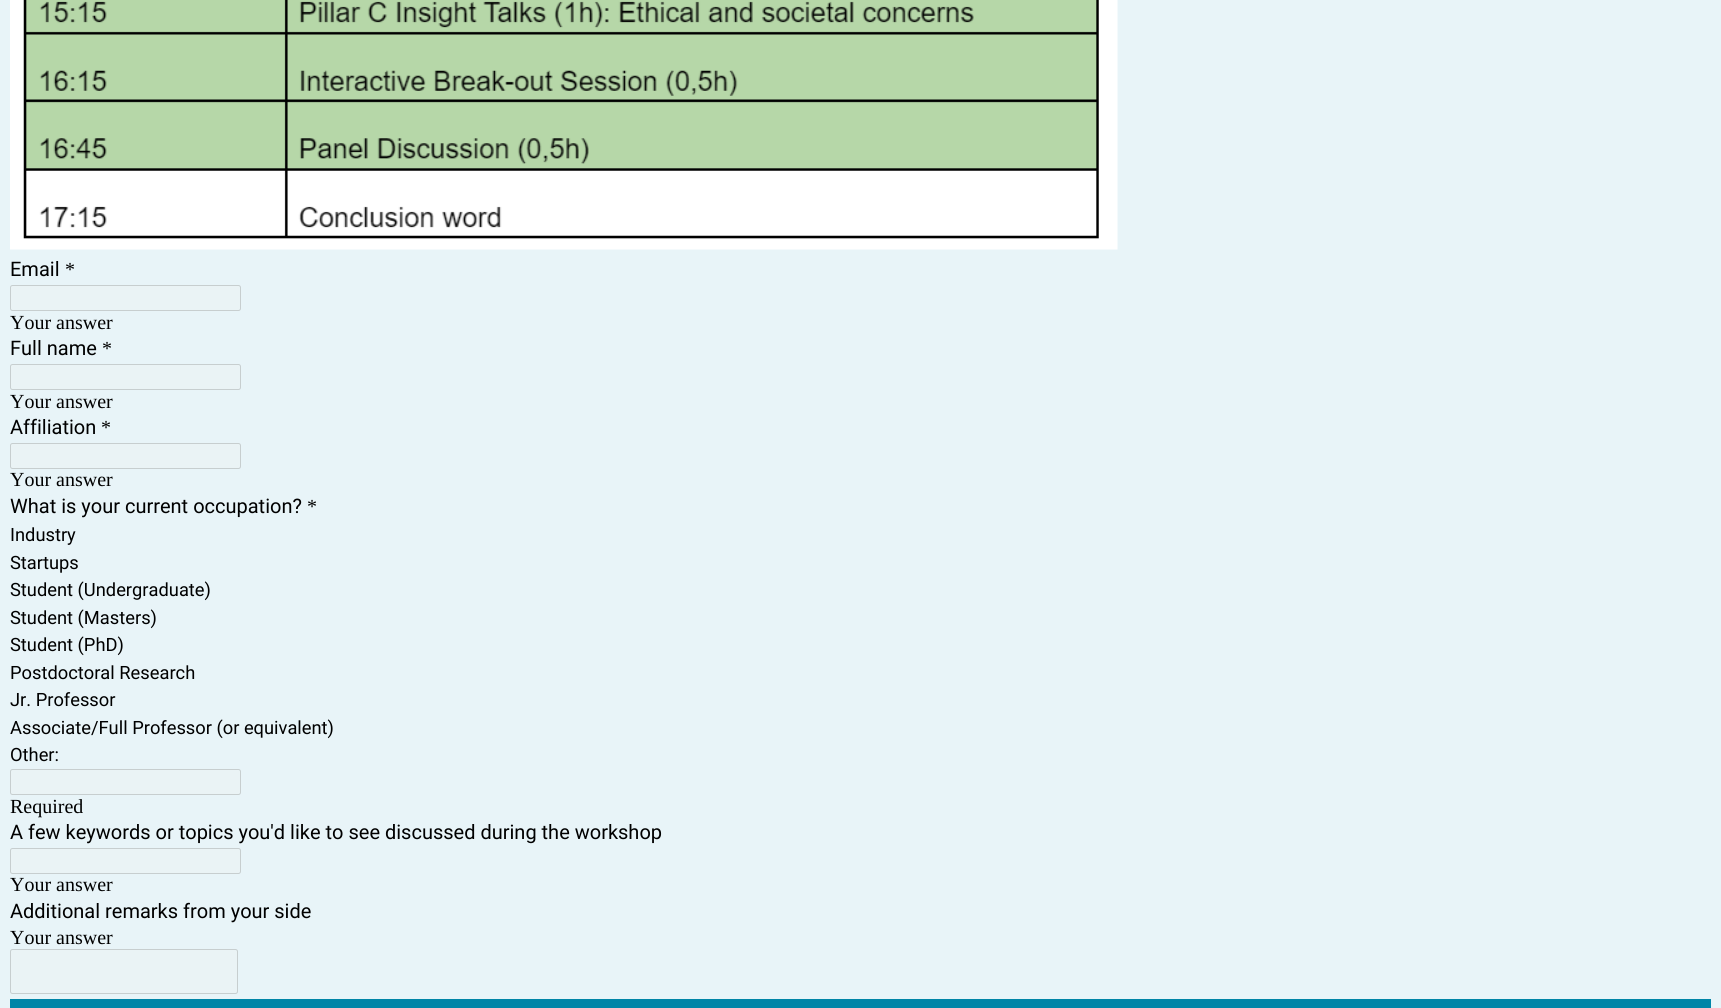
import math
import cairocffi as cairo

surface = cairo.ImageSurface(cairo.FORMAT_RGB24, 1721, 1008)
cr = cairo.Context(surface)
options = cairo.FontOptions()
options.set_hint_metrics(cairo.HINT_METRICS_OFF)
options.set_hint_style(cairo.HINT_STYLE_NONE)
cr.set_font_options(options)
cr.set_miter_limit(4)


def use_color(code):
    cr.set_source_rgb(*(v / 255 for v in bytes.fromhex(code[-6:])))


def round_rect(x, y, w, h, r):
    cr.new_sub_path()
    for i, (u, v) in enumerate([(x + w - r, y + h - r), (x + r, y + h - r), (x + r, y + r), (x + w - r, y + r)]):
        cr.arc(u, v, r, i * math.pi / 2, (i + 1) * math.pi / 2)
    cr.close_path()


def picture(path, x, y, w, h):
    cr.save()
    cr.set_source_surface(cairo.ImageSurface.create_from_png(path), x, y)
    cr.rectangle(x, y, w, h)
    cr.fill()
    cr.restore()


use_color("#e8f4f8")
cr.paint()
picture("img1.png", 10, 0, 1108, 250)
cr.select_font_face("Roboto")
cr.set_font_size(20)
use_color("#000000")
cr.move_to(10, 276)
cr.show_text("Email")
cr.select_font_face("Liberation Serif")
cr.move_to(65, 276)
cr.show_text("*")
use_color("#eaf3f5")
round_rect(10.5, 285.5, 230, 25, 2)
cr.fill_preserve()
use_color("#c7cecf")
cr.set_line_width(1)
cr.stroke()
use_color("#000000")
cr.move_to(10, 329)
cr.show_text("Your answer")
cr.select_font_face("Roboto")
cr.move_to(10, 355)
cr.show_text("Full name")
cr.select_font_face("Liberation Serif")
cr.move_to(102, 355)
cr.show_text("*")
use_color("#eaf3f5")
round_rect(10.5, 364.5, 230, 25, 2)
cr.fill_preserve()
use_color("#c7cecf")
cr.stroke()
use_color("#000000")
cr.move_to(10, 408)
cr.show_text("Your answer")
cr.select_font_face("Roboto")
cr.move_to(10, 434)
cr.show_text("Affiliation")
cr.select_font_face("Liberation Serif")
cr.move_to(101, 434)
cr.show_text("*")
use_color("#eaf3f5")
round_rect(10.5, 443.5, 230, 25, 2)
cr.fill_preserve()
use_color("#c7cecf")
cr.stroke()
use_color("#000000")
cr.move_to(10, 486)
cr.show_text("Your answer")
cr.select_font_face("Roboto")
cr.move_to(10, 513)
cr.show_text("What is your current occupation?")
cr.select_font_face("Liberation Serif")
cr.move_to(307, 513)
cr.show_text("*")
cr.select_font_face("Roboto")
cr.set_font_size(18.3)
cr.move_to(10, 541)
cr.show_text("Industry")
cr.move_to(10, 569)
cr.show_text("Startups")
cr.move_to(10, 596)
cr.show_text("Student (Undergraduate)")
cr.move_to(10, 624)
cr.show_text("Student (Masters)")
cr.move_to(10, 651)
cr.show_text("Student (PhD)")
cr.move_to(10, 679)
cr.show_text("Postdoctoral Research")
cr.move_to(10, 706)
cr.show_text("Jr. Professor")
cr.move_to(10, 734)
cr.show_text("Associate/Full Professor (or equivalent)")
cr.move_to(10, 761)
cr.show_text("Other:")
use_color("#eaf3f5")
round_rect(10.5, 769.5, 230, 25, 2)
cr.fill_preserve()
use_color("#c7cecf")
cr.stroke()
cr.select_font_face("Liberation Serif")
cr.set_font_size(20)
use_color("#000000")
cr.move_to(10, 813)
cr.show_text("Required")
cr.select_font_face("Roboto")
cr.move_to(10, 839)
cr.show_text("A few keywords or topics you'd like to see discussed during the workshop")
use_color("#eaf3f5")
round_rect(10.5, 848.5, 230, 25, 2)
cr.fill_preserve()
use_color("#c7cecf")
cr.stroke()
cr.select_font_face("Liberation Serif")
use_color("#000000")
cr.move_to(10, 891)
cr.show_text("Your answer")
cr.select_font_face("Roboto")
cr.move_to(10, 918)
cr.show_text("Additional remarks from your side")
cr.select_font_face("Liberation Serif")
cr.move_to(10, 944)
cr.show_text("Your answer")
use_color("#eaf3f5")
round_rect(10.5, 949.5, 227, 44, 2)
cr.fill_preserve()
use_color("#c7cecf")
cr.stroke()
use_color("#0085a7")
cr.rectangle(10, 999, 1701, 9)
cr.fill()
surface.write_to_png("result.png")
